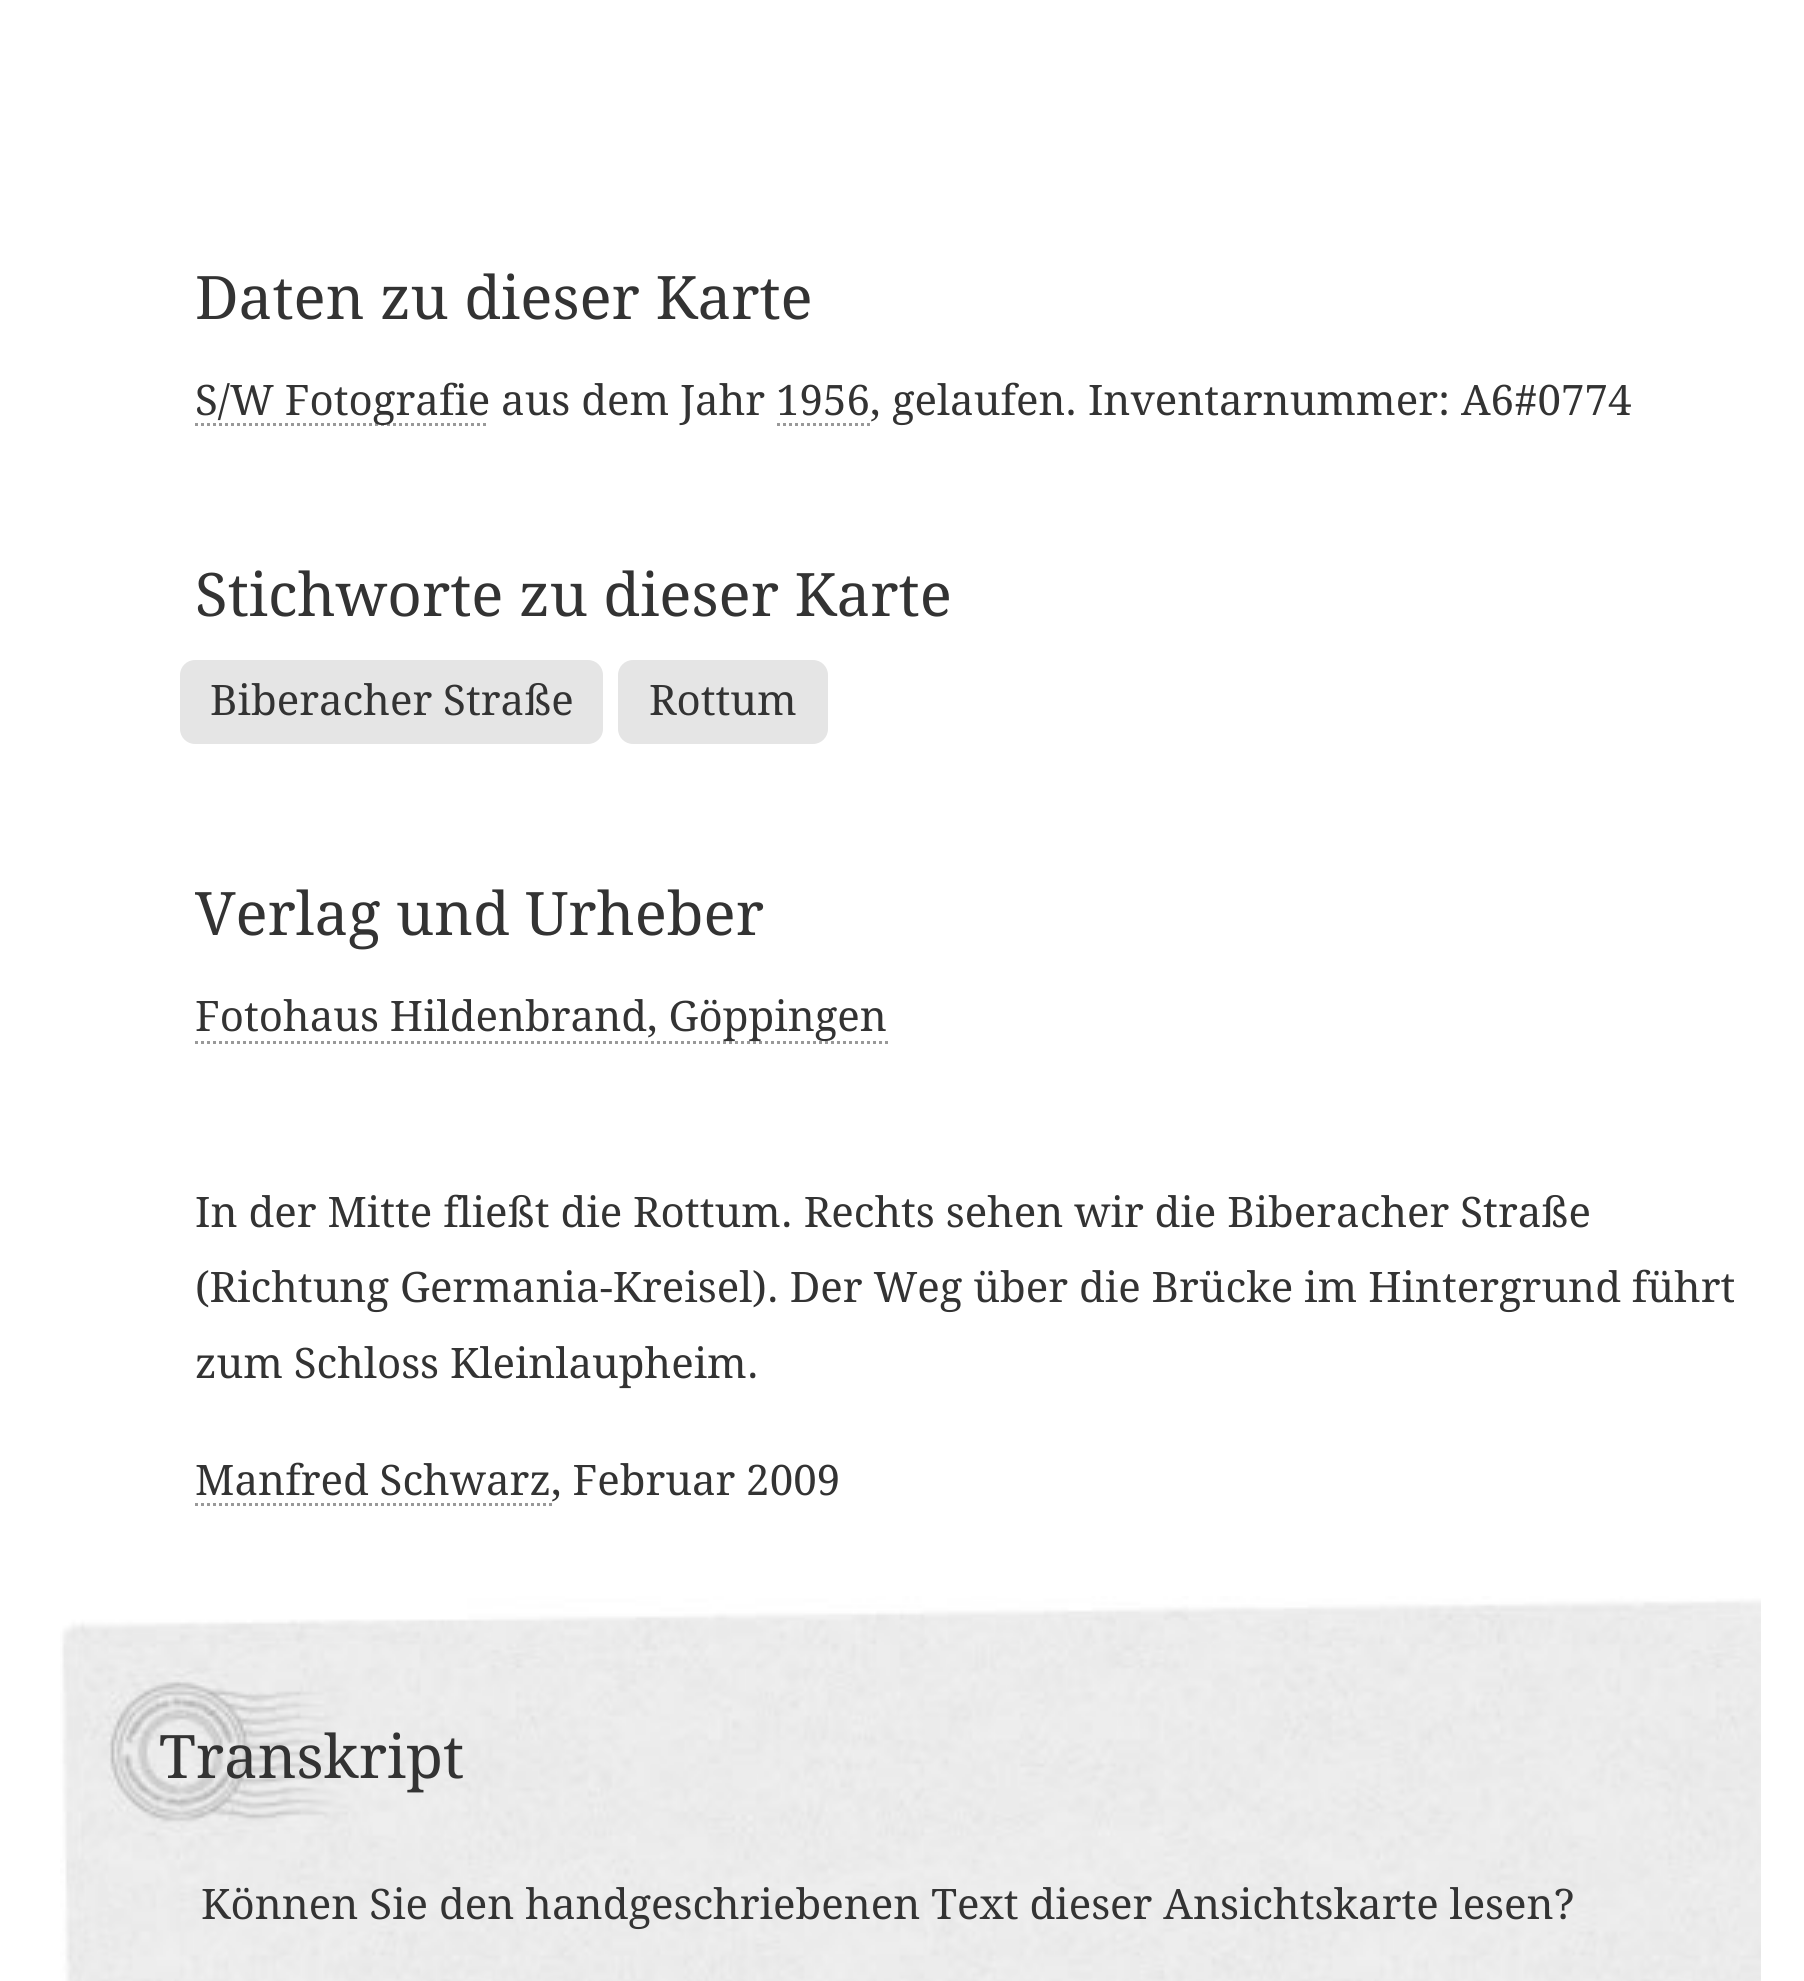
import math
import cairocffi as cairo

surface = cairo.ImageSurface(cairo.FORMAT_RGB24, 1804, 1981)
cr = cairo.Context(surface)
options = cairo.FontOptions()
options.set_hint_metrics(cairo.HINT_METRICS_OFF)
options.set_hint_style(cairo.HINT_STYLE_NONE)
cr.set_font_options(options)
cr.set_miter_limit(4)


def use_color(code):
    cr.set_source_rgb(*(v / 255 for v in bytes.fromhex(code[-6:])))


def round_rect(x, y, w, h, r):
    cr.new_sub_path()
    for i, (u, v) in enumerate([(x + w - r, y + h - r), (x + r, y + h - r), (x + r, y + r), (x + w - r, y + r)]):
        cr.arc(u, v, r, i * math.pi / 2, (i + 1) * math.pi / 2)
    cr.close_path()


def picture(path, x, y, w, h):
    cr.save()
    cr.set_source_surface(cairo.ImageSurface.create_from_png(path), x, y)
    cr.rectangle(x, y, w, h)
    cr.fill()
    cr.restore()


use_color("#ffffff")
cr.paint()
cr.select_font_face("Droid Serif")
cr.set_font_size(60)
use_color("#333333")
cr.move_to(195, 319)
cr.show_text("Daten zu dieser Karte")
cr.new_path()
cr.move_to(195, 424.5)
cr.line_to(489, 424.5)
use_color("#999999")
cr.set_line_width(3)
cr.set_dash([3, 3])
cr.stroke()
cr.set_font_size(42)
use_color("#333333")
cr.move_to(195, 415)
cr.show_text("S/W Fotografie")
cr.move_to(501, 415)
cr.show_text("aus dem Jahr")
cr.move_to(776, 415)
cr.show_text("1956")
cr.new_path()
cr.move_to(777, 424.5)
cr.line_to(870, 424.5)
use_color("#999999")
cr.stroke()
use_color("#333333")
cr.move_to(870, 415)
cr.show_text(",")
cr.move_to(892, 415)
cr.show_text("gelaufen")
cr.move_to(1065, 415)
cr.show_text(". Inventarnummer: A6#0774")
cr.set_font_size(60)
cr.move_to(195, 616)
cr.show_text("Stichworte zu dieser Karte")
use_color("#e5e5e5")
round_rect(180, 660, 423, 84, 15)
cr.fill()
cr.set_font_size(42)
use_color("#333333")
cr.move_to(210, 715)
cr.show_text("Biberacher Straße")
use_color("#e5e5e5")
round_rect(618, 660, 210, 84, 15)
cr.fill()
use_color("#333333")
cr.move_to(649, 715)
cr.show_text("Rottum")
cr.set_font_size(60)
cr.move_to(195, 935)
cr.show_text("Verlag und Urheber")
cr.new_path()
cr.move_to(195, 1042.5)
cr.line_to(888, 1042.5)
use_color("#999999")
cr.stroke()
cr.set_font_size(42)
use_color("#333333")
cr.move_to(195, 1031)
cr.show_text("Fotohaus Hildenbrand, Göppingen")
cr.move_to(195, 1227)
cr.show_text("In der Mitte fließt die Rottum. Rechts sehen wir die Biberacher Straße")
cr.move_to(195, 1302)
cr.show_text("(Richtung Germania-Kreisel). Der Weg über die Brücke im Hintergrund führt")
cr.move_to(195, 1378)
cr.show_text("zum Schloss Kleinlaupheim.")
cr.move_to(195, 1495)
cr.show_text("Manfred Schwarz")
cr.new_path()
cr.move_to(195, 1504.5)
cr.line_to(552, 1504.5)
use_color("#999999")
cr.stroke()
use_color("#333333")
cr.move_to(551, 1495)
cr.show_text(", Februar 2009")
picture("img1.png", 60, 1596, 1701, 385)
cr.set_font_size(60)
cr.move_to(159, 1778)
cr.show_text("Transkript")
cr.set_font_size(42)
cr.move_to(201, 1919)
cr.show_text("Können Sie den handgeschriebenen Text dieser Ansichtskarte lesen?")
surface.write_to_png("result.png")
